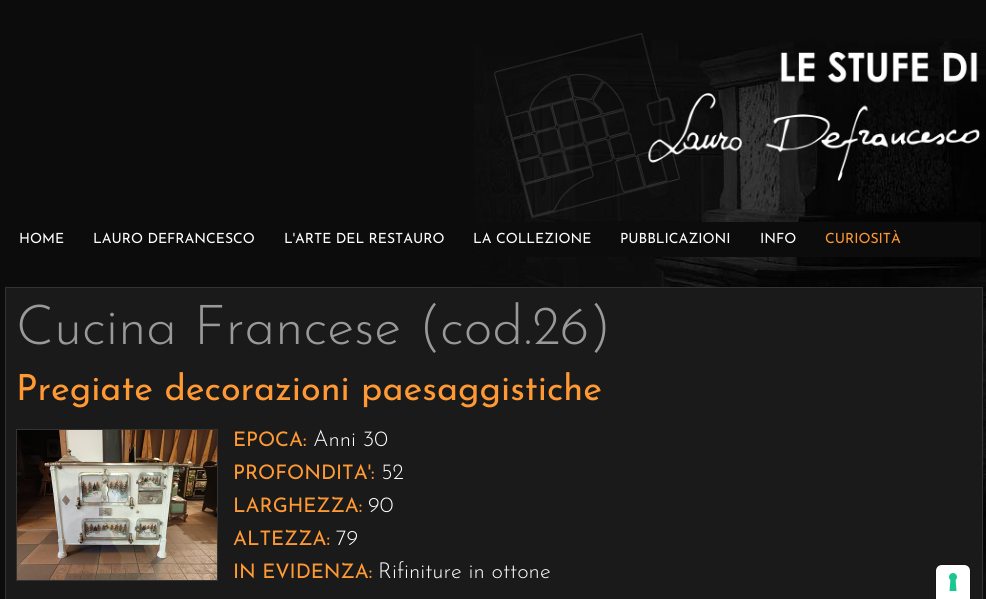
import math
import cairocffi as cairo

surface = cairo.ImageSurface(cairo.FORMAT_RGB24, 986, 599)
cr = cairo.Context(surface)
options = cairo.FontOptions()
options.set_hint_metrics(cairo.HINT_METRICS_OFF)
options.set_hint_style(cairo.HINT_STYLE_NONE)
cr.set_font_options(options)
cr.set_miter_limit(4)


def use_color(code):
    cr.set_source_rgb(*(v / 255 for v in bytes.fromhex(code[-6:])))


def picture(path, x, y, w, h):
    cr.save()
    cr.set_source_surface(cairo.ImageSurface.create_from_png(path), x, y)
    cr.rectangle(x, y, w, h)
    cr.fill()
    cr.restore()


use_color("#0c0c0c")
cr.paint()
picture("img1.png", 474, 39, 512, 542)
picture("img2.png", 494, 33, 486, 185)
use_color("#0c0c0c")
cr.rectangle(484, 222, 497, 35)
cr.fill()
cr.select_font_face("Josefin Sans")
cr.set_font_size(14)
use_color("#ffffff")
cr.move_to(19, 243)
cr.show_text("HOME")
cr.move_to(93, 243)
cr.show_text("LAURO DEFRANCESCO")
cr.move_to(284, 243)
cr.show_text("L'ARTE DEL RESTAURO")
cr.move_to(473, 243)
cr.show_text("LA COLLEZIONE")
cr.move_to(620, 243)
cr.show_text("PUBBLICAZIONI")
cr.move_to(760, 243)
cr.show_text("INFO")
use_color("#ff9933")
cr.move_to(825, 243)
cr.show_text("CURIOSITÀ")
use_color("#1a1a1a")
cr.rectangle(5.5, 287.5, 977, 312)
cr.fill_preserve()
use_color("#333333")
cr.set_line_width(1)
cr.stroke()
cr.select_font_face("Josefin Sans Light")
cr.set_font_size(55)
use_color("#999999")
cr.move_to(16, 344)
cr.show_text("Cucina Francese (cod.26)")
cr.select_font_face("Josefin Sans")
cr.set_font_size(36)
use_color("#ff9933")
cr.move_to(16, 400)
cr.show_text("Pregiate decorazioni paesaggistiche")
cr.rectangle(16.5, 429.5, 201, 151)
use_color("#333333")
cr.stroke()
picture("img3.png", 17, 430, 200, 150)
cr.set_font_size(20)
use_color("#ff9933")
cr.move_to(233, 446)
cr.show_text("EPOCA:")
cr.select_font_face("Josefin Sans Light")
cr.set_font_size(22)
use_color("#ffffff")
cr.move_to(313, 446)
cr.show_text("Anni 30")
cr.select_font_face("Josefin Sans")
cr.set_font_size(20)
use_color("#ff9933")
cr.move_to(233, 479)
cr.show_text("PROFONDITA':")
cr.select_font_face("Josefin Sans Light")
cr.set_font_size(22)
use_color("#ffffff")
cr.move_to(381, 479)
cr.show_text("52")
cr.select_font_face("Josefin Sans")
cr.set_font_size(20)
use_color("#ff9933")
cr.move_to(233, 512)
cr.show_text("LARGHEZZA:")
cr.select_font_face("Josefin Sans Light")
cr.set_font_size(22)
use_color("#ffffff")
cr.move_to(368, 512)
cr.show_text("90")
cr.select_font_face("Josefin Sans")
cr.set_font_size(20)
use_color("#ff9933")
cr.move_to(233, 545)
cr.show_text("ALTEZZA:")
cr.select_font_face("Josefin Sans Light")
cr.set_font_size(22)
use_color("#ffffff")
cr.move_to(336, 545)
cr.show_text("79")
cr.select_font_face("Josefin Sans")
cr.set_font_size(20)
use_color("#ff9933")
cr.move_to(233, 578)
cr.show_text("IN EVIDENZA:")
cr.select_font_face("Josefin Sans Light")
cr.set_font_size(22)
use_color("#ffffff")
cr.move_to(378, 578)
cr.show_text("Rifiniture in ottone")
cr.new_path()
cr.move_to(942, 564.5)
cr.line_to(964, 564.5)
cr.curve_to(967.5, 564.5, 970.5, 567.5, 970.5, 571)
cr.line_to(970.5, 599.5)
cr.line_to(935.5, 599.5)
cr.line_to(935.5, 571)
cr.curve_to(935.5, 567.5, 938.5, 564.5, 942, 564.5)
cr.close_path()
use_color("#161616")
cr.stroke()
use_color("#ffffff")
cr.new_path()
cr.move_to(942, 565)
cr.line_to(964, 565)
cr.curve_to(967.5, 565, 970, 567.5, 970, 571)
cr.line_to(970, 599)
cr.line_to(936, 599)
cr.line_to(936, 571)
cr.curve_to(936, 567.5, 938.5, 565, 942, 565)
cr.close_path()
cr.fill()
picture("img4.png", 949, 573, 8, 18)
surface.write_to_png("result.png")
